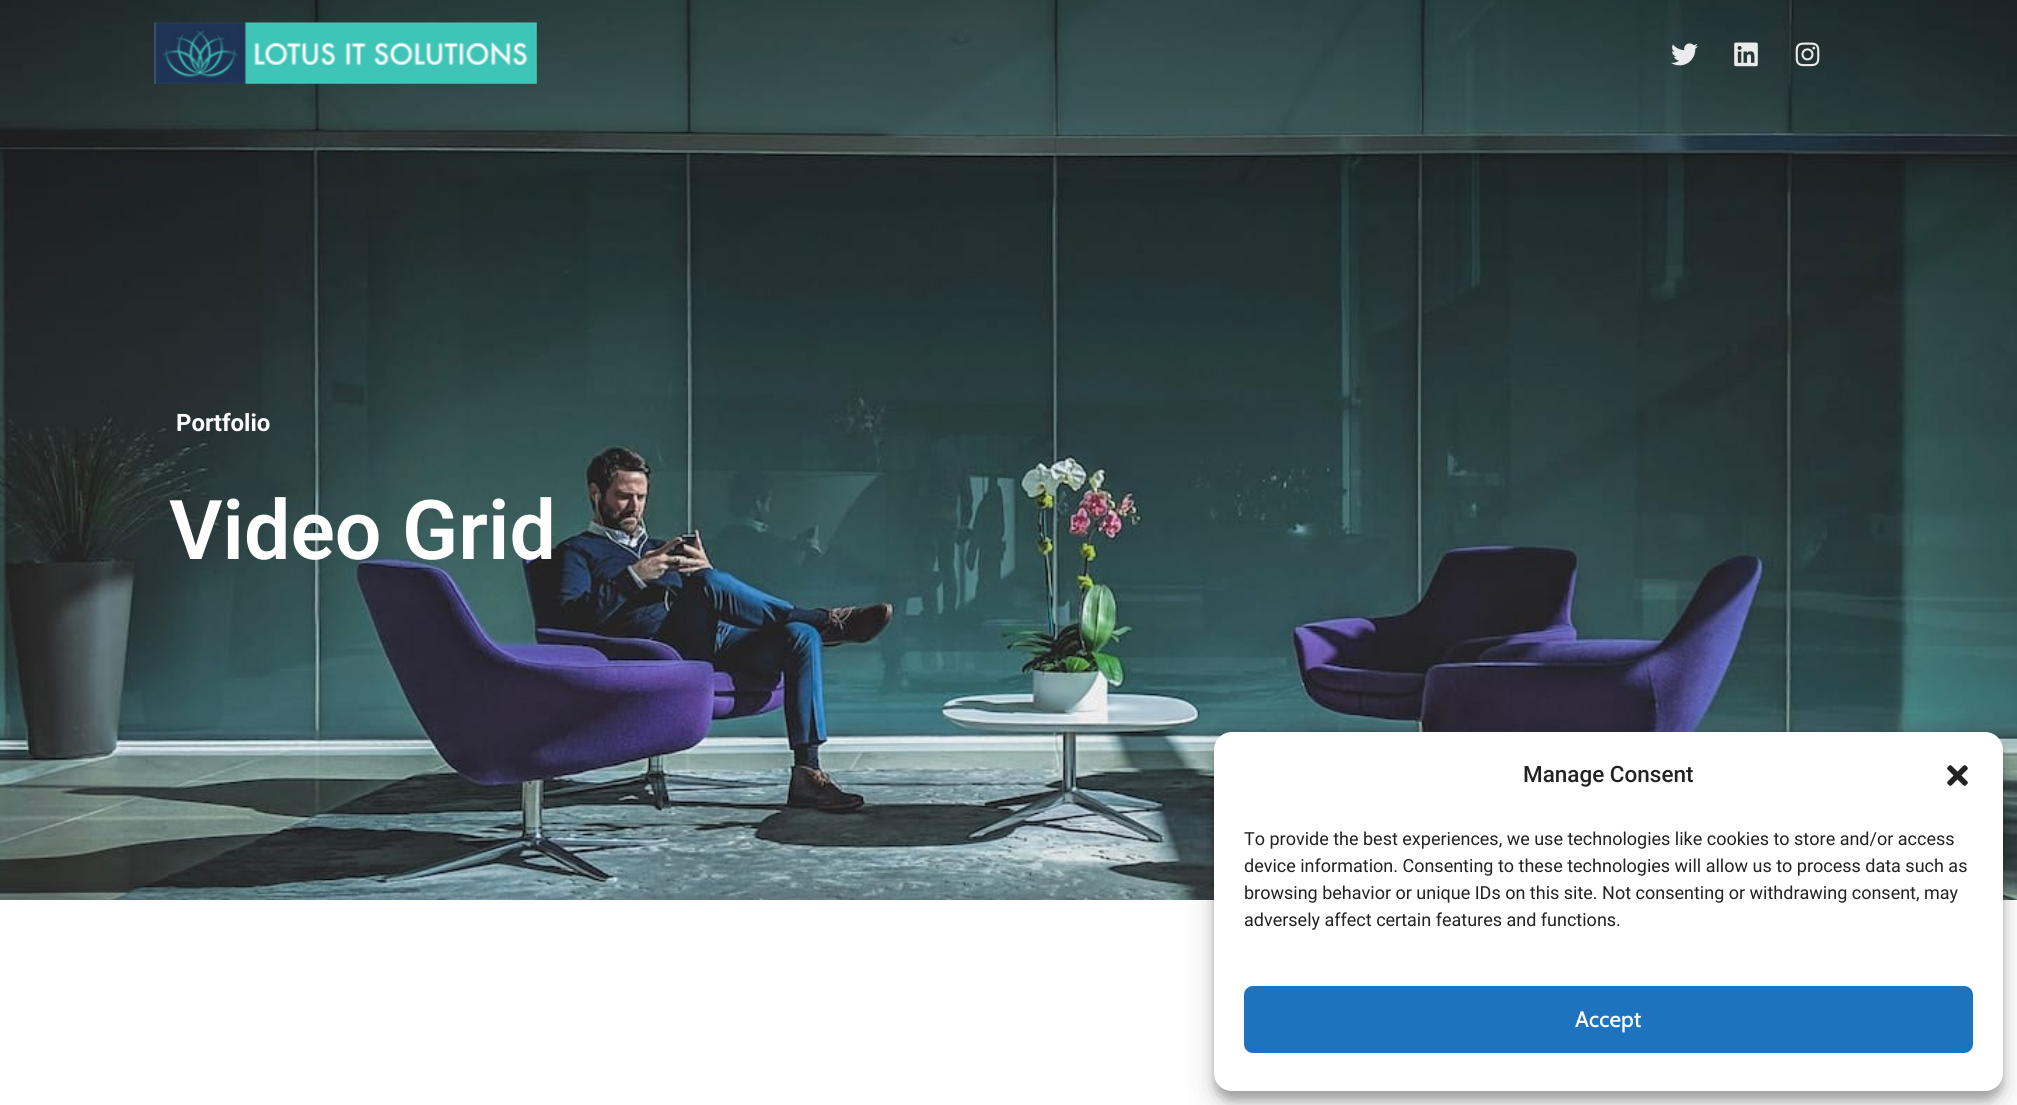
import math
import cairocffi as cairo

surface = cairo.ImageSurface(cairo.FORMAT_RGB24, 2017, 1105)
cr = cairo.Context(surface)
options = cairo.FontOptions()
options.set_hint_metrics(cairo.HINT_METRICS_OFF)
options.set_hint_style(cairo.HINT_STYLE_NONE)
cr.set_font_options(options)
cr.set_miter_limit(4)


def use_color(code):
    cr.set_source_rgb(*(v / 255 for v in bytes.fromhex(code[-6:])))


def round_rect(x, y, w, h, r):
    cr.new_sub_path()
    for i, (u, v) in enumerate([(x + w - r, y + h - r), (x + r, y + h - r), (x + r, y + r), (x + w - r, y + r)]):
        cr.arc(u, v, r, i * math.pi / 2, (i + 1) * math.pi / 2)
    cr.close_path()


def shadow(x, y, w, h, r, blur, alpha):
    cr.push_group_with_content(cairo.CONTENT_ALPHA)
    cr.set_operator(cairo.OPERATOR_SOURCE)
    for i in range(15, -16, -2):
        e = blur * i / 6
        if min(w, h) + 2 * e > 0:
            cr.set_source_rgba(0, 0, 0, alpha * math.erfc((i - 1) / 8.5) / 2)
            round_rect(x - e, y - e, w + 2 * e, h + 2 * e, max(0, min(r + e + blur * .6, min(w, h) / 2 + e)))
            cr.fill()
    cr.mask(cr.pop_group())


def picture(path, x, y, w, h):
    cr.save()
    cr.set_source_surface(cairo.ImageSurface.create_from_png(path), x, y)
    cr.rectangle(x, y, w, h)
    cr.fill()
    cr.restore()


use_color("#ffffff")
cr.paint()
picture("img5.png", 0, 0, 2017, 900)
picture("img1.png", 154, 22, 383, 62)
picture("img2.png", 1671, 43, 27, 23)
picture("img3.png", 1734, 42, 24, 25)
picture("img4.png", 1795, 42, 25, 25)
cr.select_font_face("Roboto", cairo.FONT_SLANT_NORMAL, cairo.FONT_WEIGHT_BOLD)
cr.set_font_size(24)
use_color("#ffffff")
cr.move_to(176, 431)
cr.show_text("Portfolio")
cr.select_font_face("Roboto SemiBold")
cr.set_font_size(82.5)
cr.move_to(169, 559)
cr.show_text("Video Grid")
use_color("#000000")
shadow(1214, 741, 789, 359, 18, 4.5, 0.23)
shadow(1214, 747, 789, 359, 18, 15, 0.19)
use_color("#ffffff")
round_rect(1214, 732, 789, 359, 18)
cr.fill()
cr.select_font_face("Roboto Medium")
cr.set_font_size(22.5)
use_color("#222222")
cr.move_to(1523, 782)
cr.show_text("Manage Consent")
picture("img6.png", 1947, 765, 21, 21)
cr.select_font_face("Roboto")
cr.set_font_size(18)
cr.move_to(1244, 845)
cr.show_text("To provide the best experiences, we use technologies like cookies to store and/or access")
cr.move_to(1244, 872)
cr.show_text("device information. Consenting to these technologies will allow us to process data such as")
cr.move_to(1244, 899)
cr.show_text("browsing behavior or unique IDs on this site. Not consenting or withdrawing consent, may")
cr.move_to(1244, 926)
cr.show_text("adversely affect certain features and functions.")
use_color("#1e73be")
round_rect(1245, 987, 727, 65, 8)
cr.fill_preserve()
cr.stroke()
cr.select_font_face("Cabin Medium")
cr.set_font_size(22.5)
use_color("#ffffff")
cr.move_to(1575, 1027)
cr.show_text("Accept")
surface.write_to_png("result.png")
